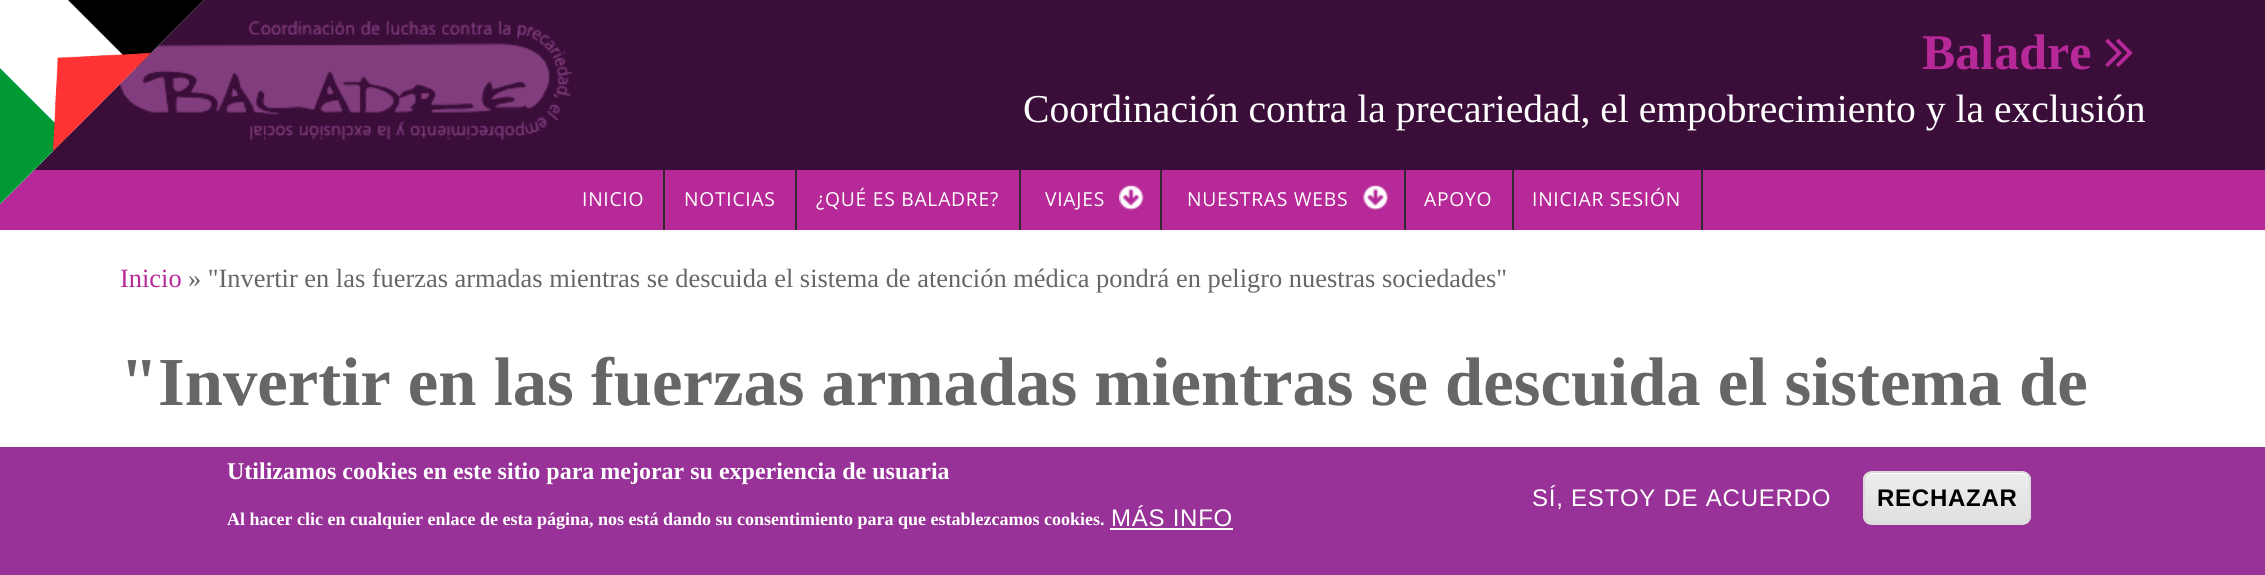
import math
import cairocffi as cairo

surface = cairo.ImageSurface(cairo.FORMAT_RGB24, 2265, 575)
cr = cairo.Context(surface)
options = cairo.FontOptions()
options.set_hint_metrics(cairo.HINT_METRICS_OFF)
options.set_hint_style(cairo.HINT_STYLE_NONE)
cr.set_font_options(options)
cr.set_miter_limit(4)


def use_color(code):
    cr.set_source_rgb(*(v / 255 for v in bytes.fromhex(code[-6:])))


def spaced_text(x, y, s, letter, word):
    cr.move_to(x, y)
    for ch in s:
        cr.show_text(ch)
        cr.rel_move_to(letter + word * (ch == ' '), 0)


def round_rect(x, y, w, h, r):
    cr.new_sub_path()
    for i, (u, v) in enumerate([(x + w - r, y + h - r), (x + r, y + h - r), (x + r, y + r), (x + w - r, y + r)]):
        cr.arc(u, v, r, i * math.pi / 2, (i + 1) * math.pi / 2)
    cr.close_path()


def picture(path, x, y, w, h):
    cr.save()
    cr.set_source_surface(cairo.ImageSurface.create_from_png(path), x, y)
    cr.rectangle(x, y, w, h)
    cr.fill()
    cr.restore()


use_color("#ffffff")
cr.paint()
use_color("#3a0e39")
cr.rectangle(34, 0, 2231, 170)
cr.fill()
picture("img2.png", 120, 21, 452, 119)
use_color("#b72898")
cr.rectangle(0, 170, 2265, 60)
cr.fill()
picture("img1.png", 0, 0, 204, 204)
cr.select_font_face("Liberation Serif", cairo.FONT_SLANT_NORMAL, cairo.FONT_WEIGHT_BOLD)
cr.set_font_size(50)
cr.move_to(1922, 69)
cr.show_text("Baladre")
picture("img3.png", 2105, 39, 28, 28)
cr.select_font_face("Liberation Serif")
cr.set_font_size(39.6)
use_color("#ffffff")
cr.move_to(1023, 122)
cr.show_text("Coordinación contra la precariedad, el empobrecimiento y la exclusión")
use_color("#2d2d2d")
cr.rectangle(663, 170, 2, 60)
cr.fill()
cr.select_font_face("Open Sans")
cr.set_font_size(19.25)
use_color("#ffffff")
spaced_text(582, 206, "INICIO", 0.75, 0)
use_color("#2d2d2d")
cr.rectangle(795, 170, 2, 60)
cr.fill()
use_color("#ffffff")
spaced_text(684, 206, "NOTICIAS", 0.75, 0)
use_color("#2d2d2d")
cr.rectangle(1019, 170, 2, 60)
cr.fill()
use_color("#ffffff")
spaced_text(816, 206, "¿QUÉ ES BALADRE?", 0.75, 0)
use_color("#2d2d2d")
cr.rectangle(1160, 170, 2, 60)
cr.fill()
use_color("#ffffff")
spaced_text(1045, 206, "VIAJES", 0.75, 0)
picture("img4.png", 1119, 184, 25, 27)
use_color("#2d2d2d")
cr.rectangle(1404, 170, 2, 60)
cr.fill()
use_color("#ffffff")
spaced_text(1187, 206, "NUESTRAS WEBS", 0.75, 0)
picture("img5.png", 1363, 184, 25, 27)
use_color("#2d2d2d")
cr.rectangle(1512, 170, 2, 60)
cr.fill()
use_color("#ffffff")
spaced_text(1424, 206, "APOYO", 0.75, 0)
use_color("#2d2d2d")
cr.rectangle(1701, 170, 2, 60)
cr.fill()
use_color("#ffffff")
spaced_text(1532, 206, "INICIAR SESIÓN", 0.75, 0)
cr.select_font_face("Liberation Serif")
cr.set_font_size(26.4)
use_color("#b72898")
cr.move_to(120, 287)
cr.show_text("Inicio")
use_color("#666666")
cr.move_to(188, 287)
cr.show_text("» \"Invertir en las fuerzas armadas mientras se descuida el sistema de atención médica pondrá en peligro nuestras sociedades\"")
cr.select_font_face("Liberation Serif", cairo.FONT_SLANT_NORMAL, cairo.FONT_WEIGHT_BOLD)
cr.set_font_size(68.65)
cr.move_to(120, 405)
cr.show_text("\"Invertir en las fuerzas armadas mientras se descuida el sistema de")
use_color("#983298")
cr.rectangle(0, 447, 2265, 128)
cr.fill()
cr.set_font_size(24)
use_color("#ffffff")
cr.move_to(227, 479)
cr.show_text("Utilizamos cookies en este sitio para mejorar su experiencia de usuaria")
cr.set_font_size(18)
cr.move_to(227, 525)
cr.show_text("Al hacer clic en cualquier enlace de esta página, nos está dando su consentimiento para que establezcamos cookies.")
cr.select_font_face("Liberation Sans")
cr.set_font_size(24)
spaced_text(1111, 526, "MÁS INFO", 0.75, 0)
cr.rectangle(1110, 528, 123, 2)
cr.fill()
spaced_text(1532, 506, "SÍ, ESTOY DE ACUERDO", 0.75, 0)
cr.save()
round_rect(1863, 471, 168, 54, 9)
cr.clip()
gradient = cairo.LinearGradient(1947, 473, 1947, 524)
gradient.add_color_stop_rgba(0.05, 0.929, 0.929, 0.929, 1)
gradient.add_color_stop_rgba(1, 0.875, 0.875, 0.875, 1)
cr.set_source(gradient)
cr.rectangle(1863, 473, 168, 51)
cr.fill()
cr.restore()
cr.new_path()
cr.move_to(1872, 474)
cr.line_to(2022, 474)
cr.curve_to(2026, 474, 2030, 477, 2030, 482)
cr.line_to(2030, 481)
cr.curve_to(2030, 477, 2026, 473, 2022, 473)
cr.line_to(1873, 473)
cr.curve_to(1871, 473, 1868, 474, 1867, 476)
cr.curve_to(1868, 475, 1870, 474, 1872, 474)
cr.close_path()
cr.fill()
round_rect(1864, 472, 166, 52, 8)
use_color("#dcdcdc")
cr.stroke()
cr.select_font_face("Liberation Sans", cairo.FONT_SLANT_NORMAL, cairo.FONT_WEIGHT_BOLD)
use_color("#000000")
spaced_text(1877, 506, "RECHAZAR", 0.75, 0)
surface.write_to_png("result.png")
